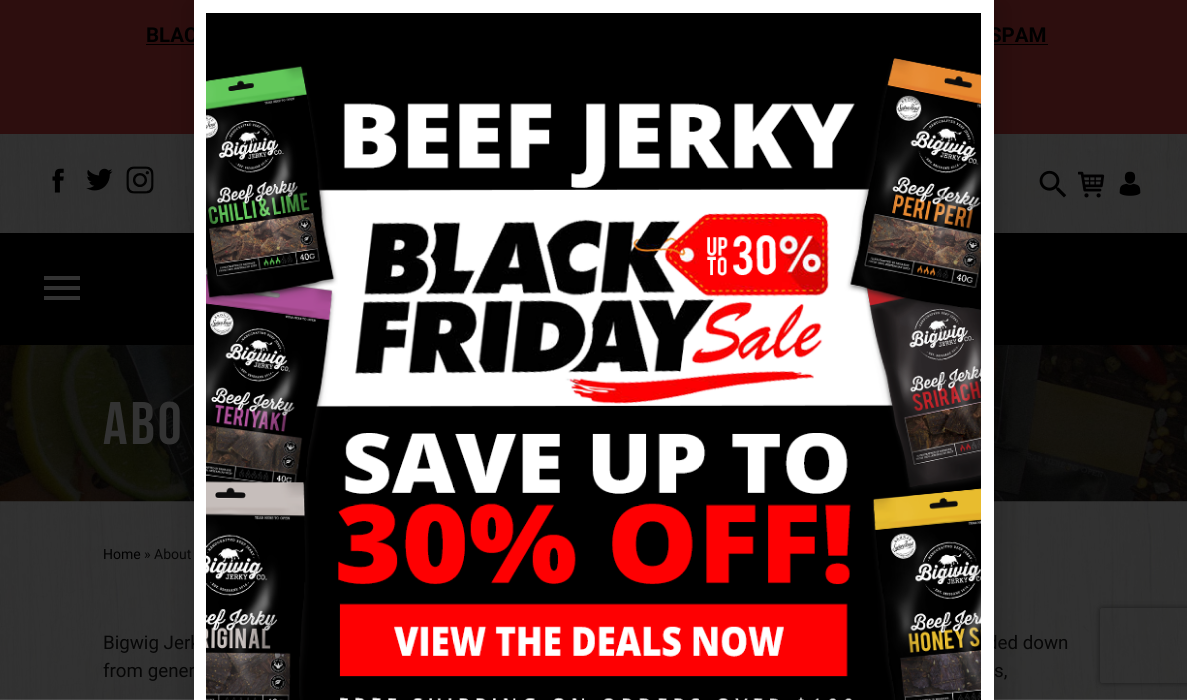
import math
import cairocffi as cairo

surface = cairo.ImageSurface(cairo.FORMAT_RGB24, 1187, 700)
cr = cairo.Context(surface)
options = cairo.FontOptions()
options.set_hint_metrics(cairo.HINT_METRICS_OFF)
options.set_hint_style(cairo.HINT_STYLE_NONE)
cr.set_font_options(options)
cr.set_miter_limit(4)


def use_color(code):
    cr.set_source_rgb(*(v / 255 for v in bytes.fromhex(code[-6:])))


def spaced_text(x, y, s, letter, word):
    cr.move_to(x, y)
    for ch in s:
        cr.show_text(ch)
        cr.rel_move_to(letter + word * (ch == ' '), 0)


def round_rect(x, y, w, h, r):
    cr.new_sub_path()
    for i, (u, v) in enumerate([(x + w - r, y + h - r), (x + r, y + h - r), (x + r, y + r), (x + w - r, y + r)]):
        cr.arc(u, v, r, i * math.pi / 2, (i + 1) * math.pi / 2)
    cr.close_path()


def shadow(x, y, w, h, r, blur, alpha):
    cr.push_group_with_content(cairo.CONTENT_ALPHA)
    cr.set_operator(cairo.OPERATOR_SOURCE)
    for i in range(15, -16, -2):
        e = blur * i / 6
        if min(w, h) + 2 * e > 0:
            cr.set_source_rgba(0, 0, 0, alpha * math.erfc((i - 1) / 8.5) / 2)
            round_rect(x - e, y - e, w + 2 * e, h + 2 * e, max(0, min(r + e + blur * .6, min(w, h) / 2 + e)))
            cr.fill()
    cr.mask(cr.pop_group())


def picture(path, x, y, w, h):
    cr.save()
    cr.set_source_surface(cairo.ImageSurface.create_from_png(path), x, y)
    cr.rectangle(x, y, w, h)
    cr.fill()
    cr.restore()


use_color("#ffffff")
cr.paint()
picture("img1.png", 0, 134, 1187, 566)
use_color("#2d0e0e")
cr.rectangle(0, 0, 1187, 134)
cr.fill()
use_color("#000000")
cr.rectangle(146, 44, 902, 1)
cr.fill()
picture("img5.png", 126, 166, 28, 28)
picture("img6.png", 1039, 170, 27, 28)
cr.rectangle(0, 233, 1187, 112)
cr.fill()
picture("img9.png", 0, 345, 1187, 157)
use_color("#000000")
shadow(193, 6, 807, 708, 0, 14.5, 0.2)
cr.select_font_face("Roboto", cairo.FONT_SLANT_NORMAL, cairo.FONT_WEIGHT_BOLD)
cr.set_font_size(20.5)
use_color("#000000")
cr.move_to(146, 42)
cr.show_text("BLAC")
cr.move_to(989, 42)
cr.show_text("SPAM")
cr.select_font_face("Roboto")
cr.set_font_size(18.75)
use_color("#060606")
cr.move_to(103, 649)
cr.show_text("Bigwig Jerk")
cr.move_to(987, 649)
cr.show_text("ded down")
cr.move_to(103, 677)
cr.show_text("from gener")
use_color("#ffffff")
cr.rectangle(194, 0, 800, 700)
cr.fill()
picture("img2.png", 206, 13, 775, 687)
picture("img3.png", 52, 168, 12, 25)
picture("img4.png", 86, 168, 27, 23)
picture("img7.png", 1078, 171, 27, 27)
picture("img8.png", 1119, 171, 22, 25)
use_color("#333333")
cr.rectangle(44, 276, 36, 4)
cr.fill()
cr.rectangle(44, 286, 36, 4)
cr.fill()
cr.rectangle(44, 296, 36, 4)
cr.fill()
cr.select_font_face("Bebas Neue")
cr.set_font_size(60)
spaced_text(103, 444, "ABO", 3, 0)
cr.select_font_face("Roboto")
cr.set_font_size(14)
use_color("#000000")
cr.move_to(103, 559)
cr.show_text("Home")
use_color("#060606")
cr.move_to(144, 559)
cr.show_text("» About")
cr.set_font_size(18.75)
cr.move_to(994, 677)
cr.show_text("s,")
cr.save()
cr.set_fill_rule(cairo.FILL_RULE_EVEN_ODD)
cr.new_path()
cr.move_to(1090, 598)
cr.line_to(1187, 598)
cr.line_to(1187, 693)
cr.line_to(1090, 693)
cr.close_path()
cr.move_to(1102.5, 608)
cr.line_to(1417.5, 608)
cr.curve_to(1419, 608, 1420, 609, 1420, 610.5)
cr.line_to(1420, 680.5)
cr.curve_to(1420, 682, 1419, 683, 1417.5, 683)
cr.line_to(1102.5, 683)
cr.curve_to(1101, 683, 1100, 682, 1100, 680.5)
cr.line_to(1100, 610.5)
cr.curve_to(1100, 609, 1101, 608, 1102.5, 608)
cr.close_path()
cr.clip()
use_color("#1a1a1a")
shadow(1100, 608, 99, 75, 2.5, 3, 1)
cr.restore()
surface.write_to_png("result.png")
